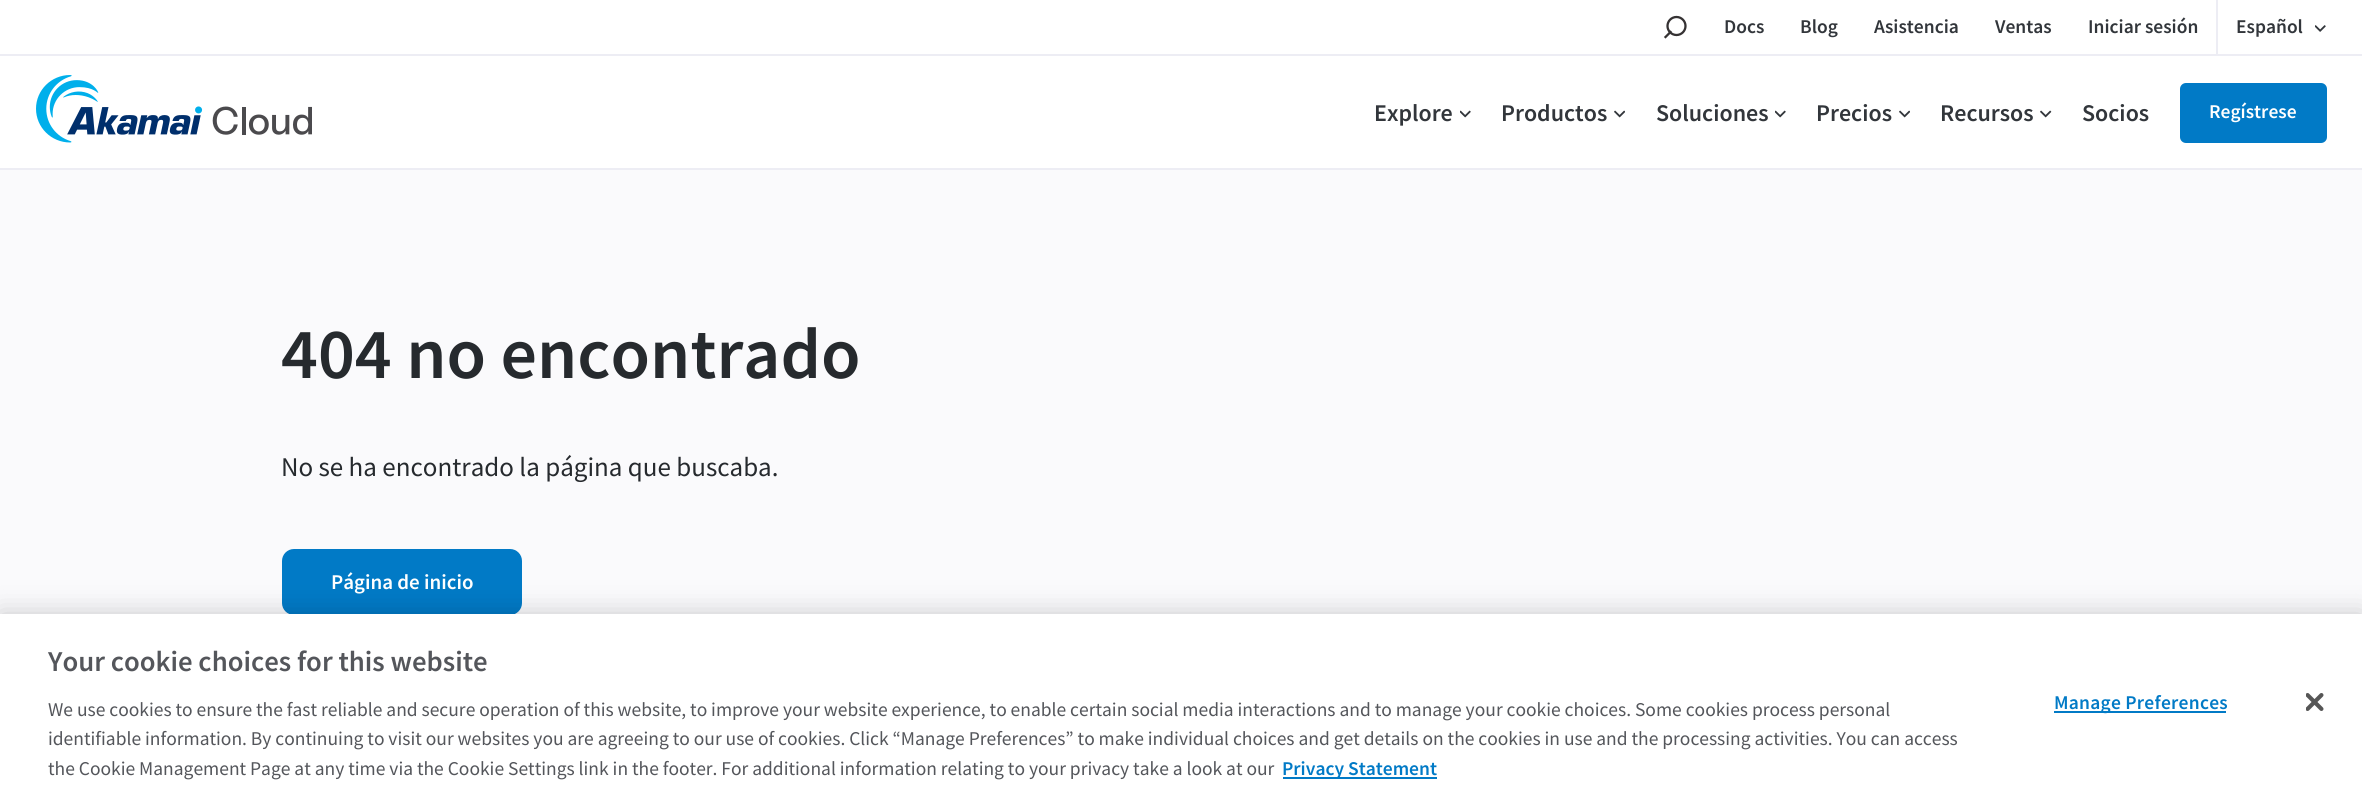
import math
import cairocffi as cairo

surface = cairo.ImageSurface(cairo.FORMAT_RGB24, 2362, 798)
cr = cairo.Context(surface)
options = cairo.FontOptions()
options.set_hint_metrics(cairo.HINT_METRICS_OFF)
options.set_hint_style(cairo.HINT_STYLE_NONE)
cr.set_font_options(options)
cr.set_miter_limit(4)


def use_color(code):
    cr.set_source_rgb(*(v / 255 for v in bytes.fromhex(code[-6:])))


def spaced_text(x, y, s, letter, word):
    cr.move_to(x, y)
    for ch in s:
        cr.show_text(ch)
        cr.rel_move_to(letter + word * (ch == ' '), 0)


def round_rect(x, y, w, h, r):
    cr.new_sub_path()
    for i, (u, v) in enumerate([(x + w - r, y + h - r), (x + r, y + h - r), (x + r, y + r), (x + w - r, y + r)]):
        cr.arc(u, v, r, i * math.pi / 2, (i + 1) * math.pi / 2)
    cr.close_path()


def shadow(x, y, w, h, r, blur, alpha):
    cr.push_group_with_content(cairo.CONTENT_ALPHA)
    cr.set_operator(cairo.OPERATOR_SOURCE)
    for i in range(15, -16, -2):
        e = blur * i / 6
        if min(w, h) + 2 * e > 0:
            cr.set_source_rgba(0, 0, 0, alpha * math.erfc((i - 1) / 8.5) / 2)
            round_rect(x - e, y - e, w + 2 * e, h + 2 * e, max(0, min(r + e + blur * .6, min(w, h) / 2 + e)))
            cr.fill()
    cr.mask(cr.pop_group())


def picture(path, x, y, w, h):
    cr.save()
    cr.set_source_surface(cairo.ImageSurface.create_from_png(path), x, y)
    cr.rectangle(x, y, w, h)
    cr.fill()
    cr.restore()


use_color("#ffffff")
cr.paint()
use_color("#ededf4")
cr.rectangle(0, 54, 2362, 2)
cr.fill()
cr.arc(1676.5, 26, 9, 0, 2 * math.pi)
use_color("#353233")
cr.set_line_width(2.3)
cr.stroke()
cr.new_path()
cr.move_to(1670.5, 32)
cr.line_to(1665.5, 37)
cr.set_line_cap(cairo.LINE_CAP_SQUARE)
cr.stroke()
cr.select_font_face("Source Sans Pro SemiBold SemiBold")
cr.set_font_size(19.5)
use_color("#32363b")
cr.move_to(1724, 33)
cr.show_text("Docs")
cr.move_to(1800, 33)
cr.show_text("Blog")
cr.move_to(1874, 33)
cr.show_text("Asistencia")
cr.move_to(1995, 33)
cr.show_text("Ventas")
cr.move_to(2088, 33)
cr.show_text("Iniciar sesión")
use_color("#ededf4")
cr.rectangle(2216, 0, 2, 54)
cr.fill()
use_color("#32363b")
cr.move_to(2236, 33)
cr.show_text("Español")
picture("img1.png", 2315, 25, 11, 7)
use_color("#ededf4")
cr.rectangle(0, 168, 2362, 2)
cr.fill()
picture("img2.png", 36, 75, 276, 68)
cr.set_font_size(24)
use_color("#32363b")
cr.move_to(1374, 121)
cr.show_text("Explore")
picture("img3.png", 1460, 110, 11, 8)
cr.move_to(1501, 121)
cr.show_text("Productos")
picture("img4.png", 1614, 110, 11, 8)
cr.move_to(1656, 121)
cr.show_text("Soluciones")
picture("img3.png", 1775, 110, 11, 8)
cr.move_to(1816, 121)
cr.show_text("Precios")
picture("img4.png", 1899, 110, 11, 8)
cr.move_to(1940, 121)
cr.show_text("Recursos")
picture("img5.png", 2040, 110, 12, 8)
cr.move_to(2082, 121)
cr.show_text("Socios")
use_color("#017ac6")
round_rect(2180, 83, 147, 60, 6)
cr.fill()
cr.set_font_size(19.5)
use_color("#ffffff")
cr.move_to(2209, 118)
cr.show_text("Regístrese")
use_color("#fafafc")
cr.rectangle(0, 170, 2362, 444)
cr.fill()
cr.set_font_size(72)
use_color("#262a2e")
cr.move_to(281, 378)
cr.show_text("404 no encontrado")
cr.select_font_face("Source Sans Pro")
cr.set_font_size(27)
cr.move_to(281, 476)
cr.show_text("No se ha encontrado la página que buscaba.")
use_color("#017ac6")
round_rect(283, 550, 238, 64, 11)
cr.fill_preserve()
cr.set_line_width(2)
cr.set_line_cap(cairo.LINE_CAP_BUTT)
cr.stroke()
cr.select_font_face("Source Sans Pro SemiBold SemiBold")
cr.set_font_size(21)
use_color("#ffffff")
cr.move_to(331, 589)
cr.show_text("Página de inicio")
use_color("#000000")
shadow(0, 614, 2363, 184, 0, 13.5, 0.2)
use_color("#ffffff")
cr.rectangle(0, 614, 2362, 184)
cr.fill()
cr.set_font_size(28.75)
use_color("#54565b")
cr.move_to(48, 671)
cr.show_text("Your cookie choices for this website")
cr.select_font_face("Source Sans Pro")
cr.set_font_size(19.5)
cr.move_to(48, 716)
cr.show_text("We use cookies to ensure the fast reliable and secure operation of this website, to improve your website experience, to enable certain social media interactions and to manage your cookie choices. Some cookies process personal")
cr.move_to(48, 745)
cr.show_text("identifiable information. By continuing to visit our websites you are agreeing to our use of cookies. Click “Manage Preferences” to make individual choices and get details on the cookies in use and the processing activities. You can access")
cr.move_to(48, 775)
cr.show_text("the Cookie Management Page at any time via the Cookie Settings link in the footer. For additional information relating to your privacy take a look at our")
use_color("#017ac6")
cr.rectangle(1283, 777, 154, 2)
cr.fill()
cr.select_font_face("Source Sans Pro SemiBold SemiBold")
cr.move_to(1282, 775)
cr.show_text("Privacy Statement")
cr.rectangle(2054, 711, 172, 2)
cr.fill()
spaced_text(2054, 709, "Manage Preferences", 0.25, 0)
picture("img6.png", 2306, 693, 18, 18)
surface.write_to_png("result.png")
